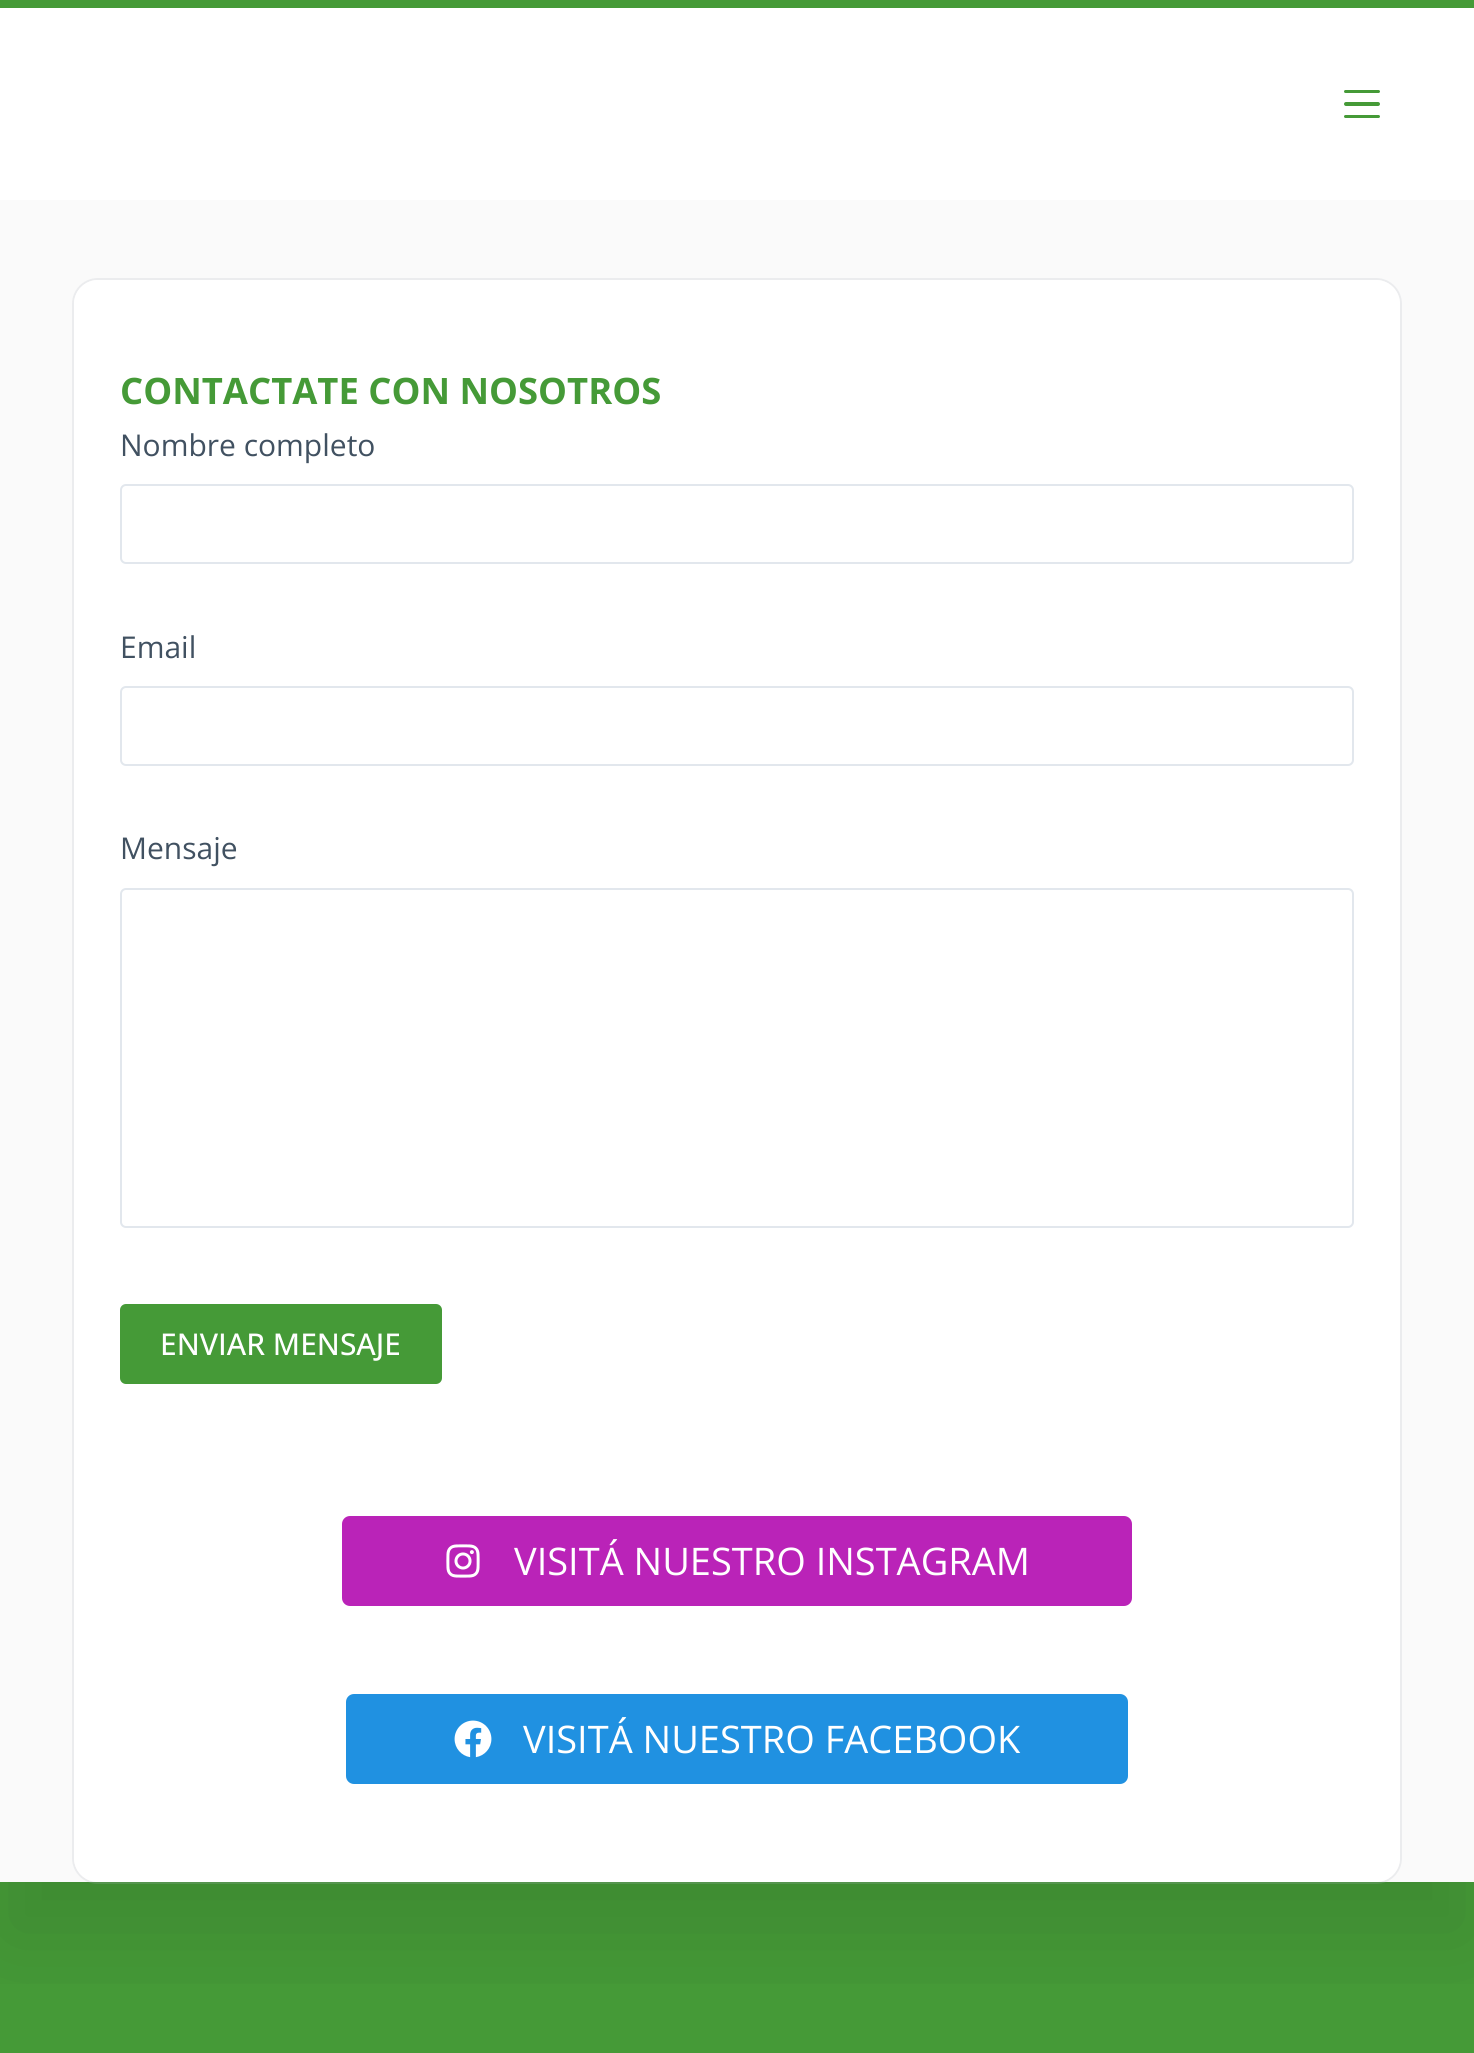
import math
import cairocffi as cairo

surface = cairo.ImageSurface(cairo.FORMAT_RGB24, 1474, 2053)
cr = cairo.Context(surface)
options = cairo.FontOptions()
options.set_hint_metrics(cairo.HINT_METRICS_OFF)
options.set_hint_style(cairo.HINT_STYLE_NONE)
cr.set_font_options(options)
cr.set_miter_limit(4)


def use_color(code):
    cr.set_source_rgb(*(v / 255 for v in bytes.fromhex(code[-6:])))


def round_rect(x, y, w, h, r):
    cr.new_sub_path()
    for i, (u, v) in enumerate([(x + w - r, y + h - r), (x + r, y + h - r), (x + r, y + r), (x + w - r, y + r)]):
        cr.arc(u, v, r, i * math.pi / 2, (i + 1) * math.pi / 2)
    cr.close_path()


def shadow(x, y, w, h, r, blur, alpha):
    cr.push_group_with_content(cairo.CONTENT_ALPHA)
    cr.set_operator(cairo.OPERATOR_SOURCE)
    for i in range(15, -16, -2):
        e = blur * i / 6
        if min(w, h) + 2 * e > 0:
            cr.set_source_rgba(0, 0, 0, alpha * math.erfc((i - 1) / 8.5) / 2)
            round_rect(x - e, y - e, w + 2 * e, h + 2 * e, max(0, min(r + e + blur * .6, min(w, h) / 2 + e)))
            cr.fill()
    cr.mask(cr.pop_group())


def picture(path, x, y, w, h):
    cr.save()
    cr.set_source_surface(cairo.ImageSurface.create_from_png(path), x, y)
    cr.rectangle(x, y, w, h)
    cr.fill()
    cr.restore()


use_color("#fafafa")
cr.paint()
use_color("#459a37")
cr.rectangle(0, 1882, 1474, 171)
cr.fill()
cr.save()
cr.rectangle(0, 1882, 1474, 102)
cr.clip()
use_color("#000000")
shadow(0, 260, 1474, 1682, 0, 50, 0.1)
cr.restore()
cr.set_source_rgba(1, 1, 1, 0.9)
cr.rectangle(0, 8, 1474, 192)
cr.fill()
use_color("#459a37")
cr.rectangle(0, 0, 1474, 8)
cr.fill()
round_rect(1344, 90, 36, 3, 1.5)
cr.fill()
round_rect(1344, 102, 36, 4, 2)
cr.fill()
round_rect(1344, 115, 36, 3, 1.5)
cr.fill()
round_rect(73, 279, 1328, 1604, 25)
cr.set_source_rgba(0.69, 0.71, 0.757, 0.2)
cr.stroke()
use_color("#ffffff")
round_rect(74, 280, 1326, 1602, 24)
cr.fill()
cr.select_font_face("Open Sans", cairo.FONT_SLANT_NORMAL, cairo.FONT_WEIGHT_BOLD)
cr.set_font_size(36.4)
use_color("#459a37")
cr.move_to(120, 404)
cr.show_text("CONTACTATE CON NOSOTROS")
cr.select_font_face("Open Sans")
cr.set_font_size(30)
use_color("#415161")
cr.move_to(120, 456)
cr.show_text("Nombre completo")
round_rect(121, 485, 1232, 78, 5)
use_color("#e2e7ed")
cr.stroke()
use_color("#415161")
cr.move_to(120, 658)
cr.show_text("Email")
round_rect(121, 687, 1232, 78, 5)
use_color("#e2e7ed")
cr.stroke()
use_color("#415161")
cr.move_to(120, 859)
cr.show_text("Mensaje")
round_rect(121, 889, 1232, 338, 5)
use_color("#e2e7ed")
cr.stroke()
use_color("#459a37")
round_rect(120, 1304, 322, 80, 6)
cr.fill()
cr.select_font_face("Open Sans Medium")
use_color("#ffffff")
cr.move_to(160, 1355)
cr.show_text("ENVIAR MENSAJE")
use_color("#ba23b8")
round_rect(342, 1516, 790, 90, 8)
cr.fill()
picture("img1.png", 446, 1544, 34, 34)
cr.select_font_face("Open Sans")
cr.set_font_size(38)
use_color("#ffffff")
cr.move_to(514, 1575)
cr.show_text("VISITÁ NUESTRO INSTAGRAM")
use_color("#2091e1")
round_rect(346, 1694, 782, 90, 8)
cr.fill()
picture("img2.png", 454, 1720, 38, 38)
use_color("#ffffff")
cr.move_to(523, 1753)
cr.show_text("VISITÁ NUESTRO FACEBOOK")
surface.write_to_png("result.png")
